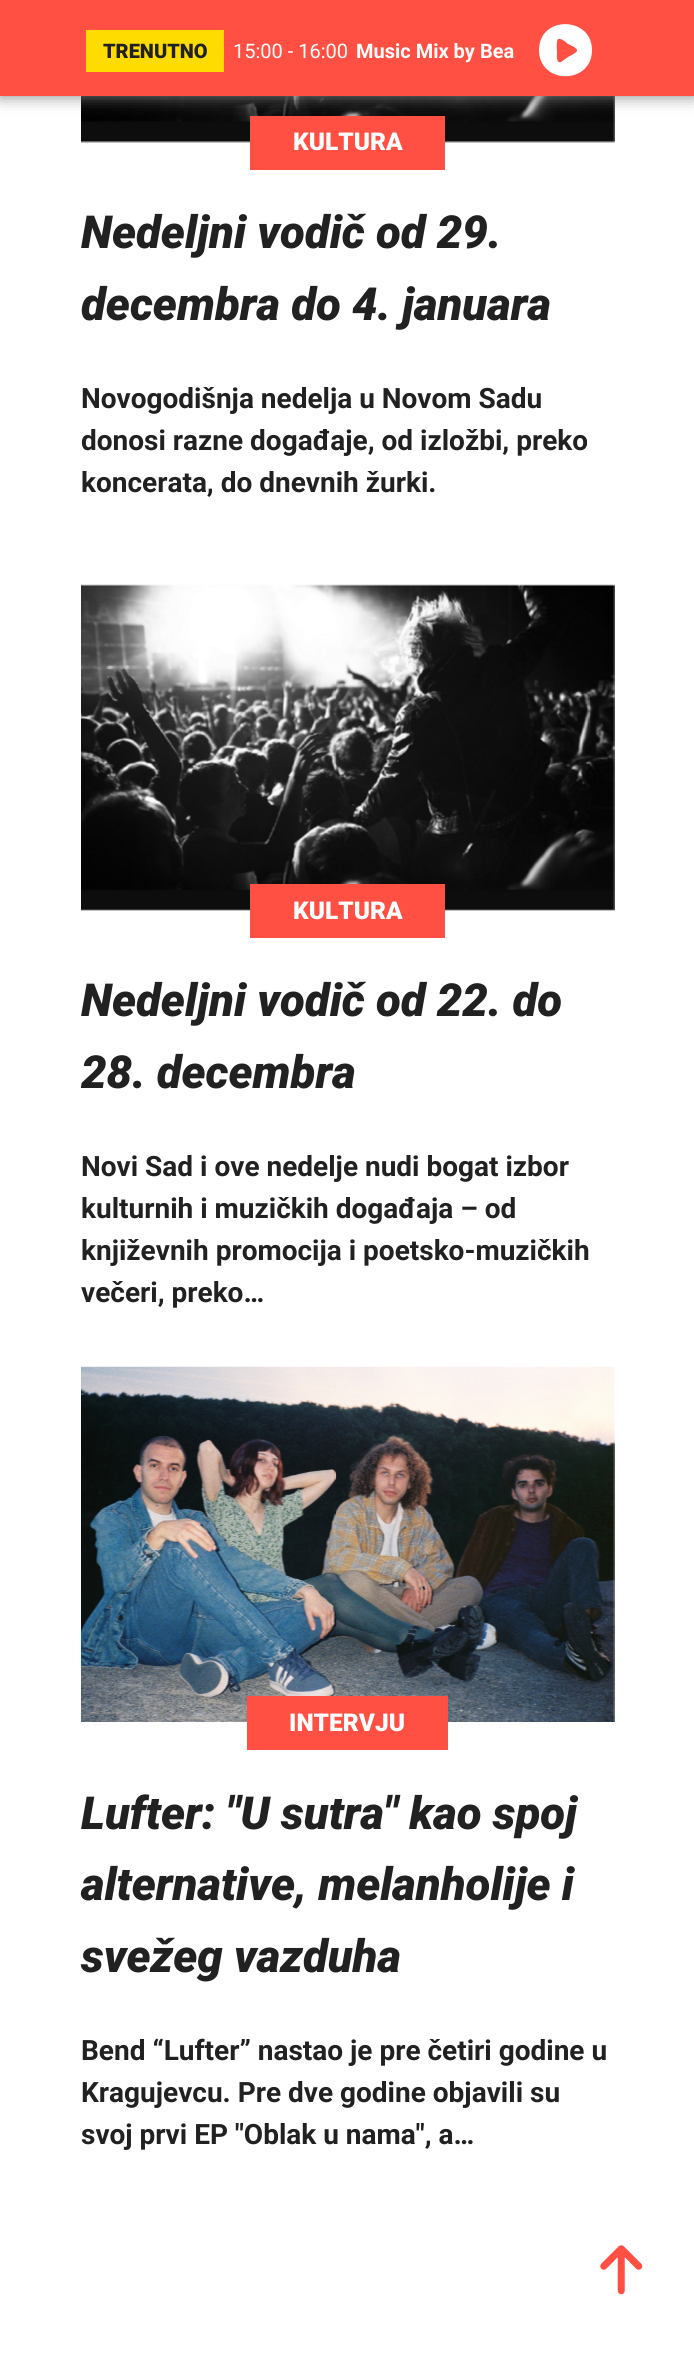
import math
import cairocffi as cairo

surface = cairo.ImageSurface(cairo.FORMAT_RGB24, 694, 2354)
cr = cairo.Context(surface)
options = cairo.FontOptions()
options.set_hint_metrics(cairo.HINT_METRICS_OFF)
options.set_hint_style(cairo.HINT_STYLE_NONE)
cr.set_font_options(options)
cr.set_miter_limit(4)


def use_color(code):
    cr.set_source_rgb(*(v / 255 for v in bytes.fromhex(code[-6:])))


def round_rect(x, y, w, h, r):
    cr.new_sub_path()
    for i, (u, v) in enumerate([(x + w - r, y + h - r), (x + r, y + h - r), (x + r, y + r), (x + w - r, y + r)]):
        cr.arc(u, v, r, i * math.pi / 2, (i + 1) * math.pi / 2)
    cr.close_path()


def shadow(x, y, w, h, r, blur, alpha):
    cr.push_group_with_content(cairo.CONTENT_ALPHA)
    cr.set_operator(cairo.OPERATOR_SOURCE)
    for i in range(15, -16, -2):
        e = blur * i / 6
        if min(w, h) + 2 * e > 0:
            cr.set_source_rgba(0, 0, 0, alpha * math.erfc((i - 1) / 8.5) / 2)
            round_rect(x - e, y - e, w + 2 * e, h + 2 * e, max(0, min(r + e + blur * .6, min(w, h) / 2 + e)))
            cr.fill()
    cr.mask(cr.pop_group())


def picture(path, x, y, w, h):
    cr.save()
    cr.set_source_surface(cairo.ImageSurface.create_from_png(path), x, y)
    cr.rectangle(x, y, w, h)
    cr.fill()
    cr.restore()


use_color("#ffffff")
cr.paint()
picture("img1.png", 81, 96, 534, 47)
use_color("#ff5043")
cr.rectangle(250, 116, 195, 54)
cr.fill()
use_color("#818181")
shadow(0, 0, 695, 96, 0, 8, 1)
use_color("#ff5043")
cr.rectangle(0, 0, 694, 96)
cr.fill()
use_color("#ffdc00")
cr.rectangle(86, 30, 138, 42)
cr.fill()
cr.select_font_face("Roboto Black")
cr.set_font_size(20)
use_color("#212121")
cr.move_to(103, 58)
cr.show_text("TRENUTNO")
cr.select_font_face("Roboto")
use_color("#ffffff")
cr.move_to(233, 58)
cr.show_text("15:00 - 16:00")
cr.select_font_face("Roboto", cairo.FONT_SLANT_NORMAL, cairo.FONT_WEIGHT_BOLD)
cr.move_to(356, 58)
cr.show_text("Music Mix by Bea")
cr.new_path()
cr.move_to(539, 50)
cr.curve_to(539, 15, 592, 16, 592, 50)
cr.curve_to(592, 85, 539, 85, 539, 50)
cr.close_path()
cr.move_to(558, 39)
cr.curve_to(556, 41, 557, 51, 557, 53)
cr.curve_to(557, 55, 556, 64, 561, 62)
cr.line_to(568, 57)
cr.curve_to(570, 56, 576, 53, 577, 51)
cr.curve_to(578, 48, 570, 45, 568, 44)
cr.curve_to(566, 42, 561, 38, 558, 39)
cr.close_path()
cr.fill()
cr.select_font_face("Roboto Black")
cr.set_font_size(24.5)
cr.move_to(293, 150)
cr.show_text("KULTURA")
cr.select_font_face("Roboto Black", cairo.FONT_SLANT_ITALIC)
cr.set_font_size(45.5)
use_color("#212121")
cr.move_to(81, 248)
cr.show_text("Nedeljni vodič od 29.")
cr.move_to(81, 320)
cr.show_text("decembra do 4. januara")
cr.select_font_face("Roboto", cairo.FONT_SLANT_NORMAL, cairo.FONT_WEIGHT_BOLD)
cr.set_font_size(28)
cr.move_to(81, 408)
cr.show_text("Novogodišnja nedelja u Novom Sadu")
cr.move_to(81, 450)
cr.show_text("donosi razne događaje, od izložbi, preko")
cr.move_to(81, 492)
cr.show_text("koncerata, do dnevnih žurki.")
picture("img2.png", 81, 584, 534, 327)
use_color("#ff5043")
cr.rectangle(250, 884, 195, 54)
cr.fill()
cr.select_font_face("Roboto Black")
cr.set_font_size(24.5)
use_color("#ffffff")
cr.move_to(293, 919)
cr.show_text("KULTURA")
cr.select_font_face("Roboto Black", cairo.FONT_SLANT_ITALIC)
cr.set_font_size(45.5)
use_color("#212121")
cr.move_to(81, 1016)
cr.show_text("Nedeljni vodič od 22. do")
cr.move_to(81, 1088)
cr.show_text("28. decembra")
cr.select_font_face("Roboto", cairo.FONT_SLANT_NORMAL, cairo.FONT_WEIGHT_BOLD)
cr.set_font_size(28)
cr.move_to(81, 1176)
cr.show_text("Novi Sad i ove nedelje nudi bogat izbor")
cr.move_to(81, 1218)
cr.show_text("kulturnih i muzičkih događaja – od")
cr.move_to(81, 1260)
cr.show_text("književnih promocija i poetsko-muzičkih")
cr.move_to(81, 1302)
cr.show_text("večeri, preko…")
picture("img3.png", 81, 1366, 534, 356)
use_color("#ff5043")
cr.rectangle(247, 1696, 201, 54)
cr.fill()
cr.select_font_face("Roboto Black")
cr.set_font_size(24.5)
use_color("#ffffff")
cr.move_to(289, 1731)
cr.show_text("INTERVJU")
cr.select_font_face("Roboto Black", cairo.FONT_SLANT_ITALIC)
cr.set_font_size(45.5)
use_color("#212121")
cr.move_to(81, 1829)
cr.show_text("Lufter: \"U sutra\" kao spoj")
cr.move_to(81, 1900)
cr.show_text("alternative, melanholije i")
cr.move_to(81, 1972)
cr.show_text("svežeg vazduha")
cr.select_font_face("Roboto", cairo.FONT_SLANT_NORMAL, cairo.FONT_WEIGHT_BOLD)
cr.set_font_size(28)
cr.move_to(81, 2060)
cr.show_text("Bend “Lufter” nastao je pre četiri godine u")
cr.move_to(81, 2102)
cr.show_text("Kragujevcu. Pre dve godine objavili su")
cr.move_to(81, 2144)
cr.show_text("svoj prvi EP \"Oblak u nama\", a…")
picture("img4.png", 600, 2245, 43, 50)
surface.write_to_png("result.png")
